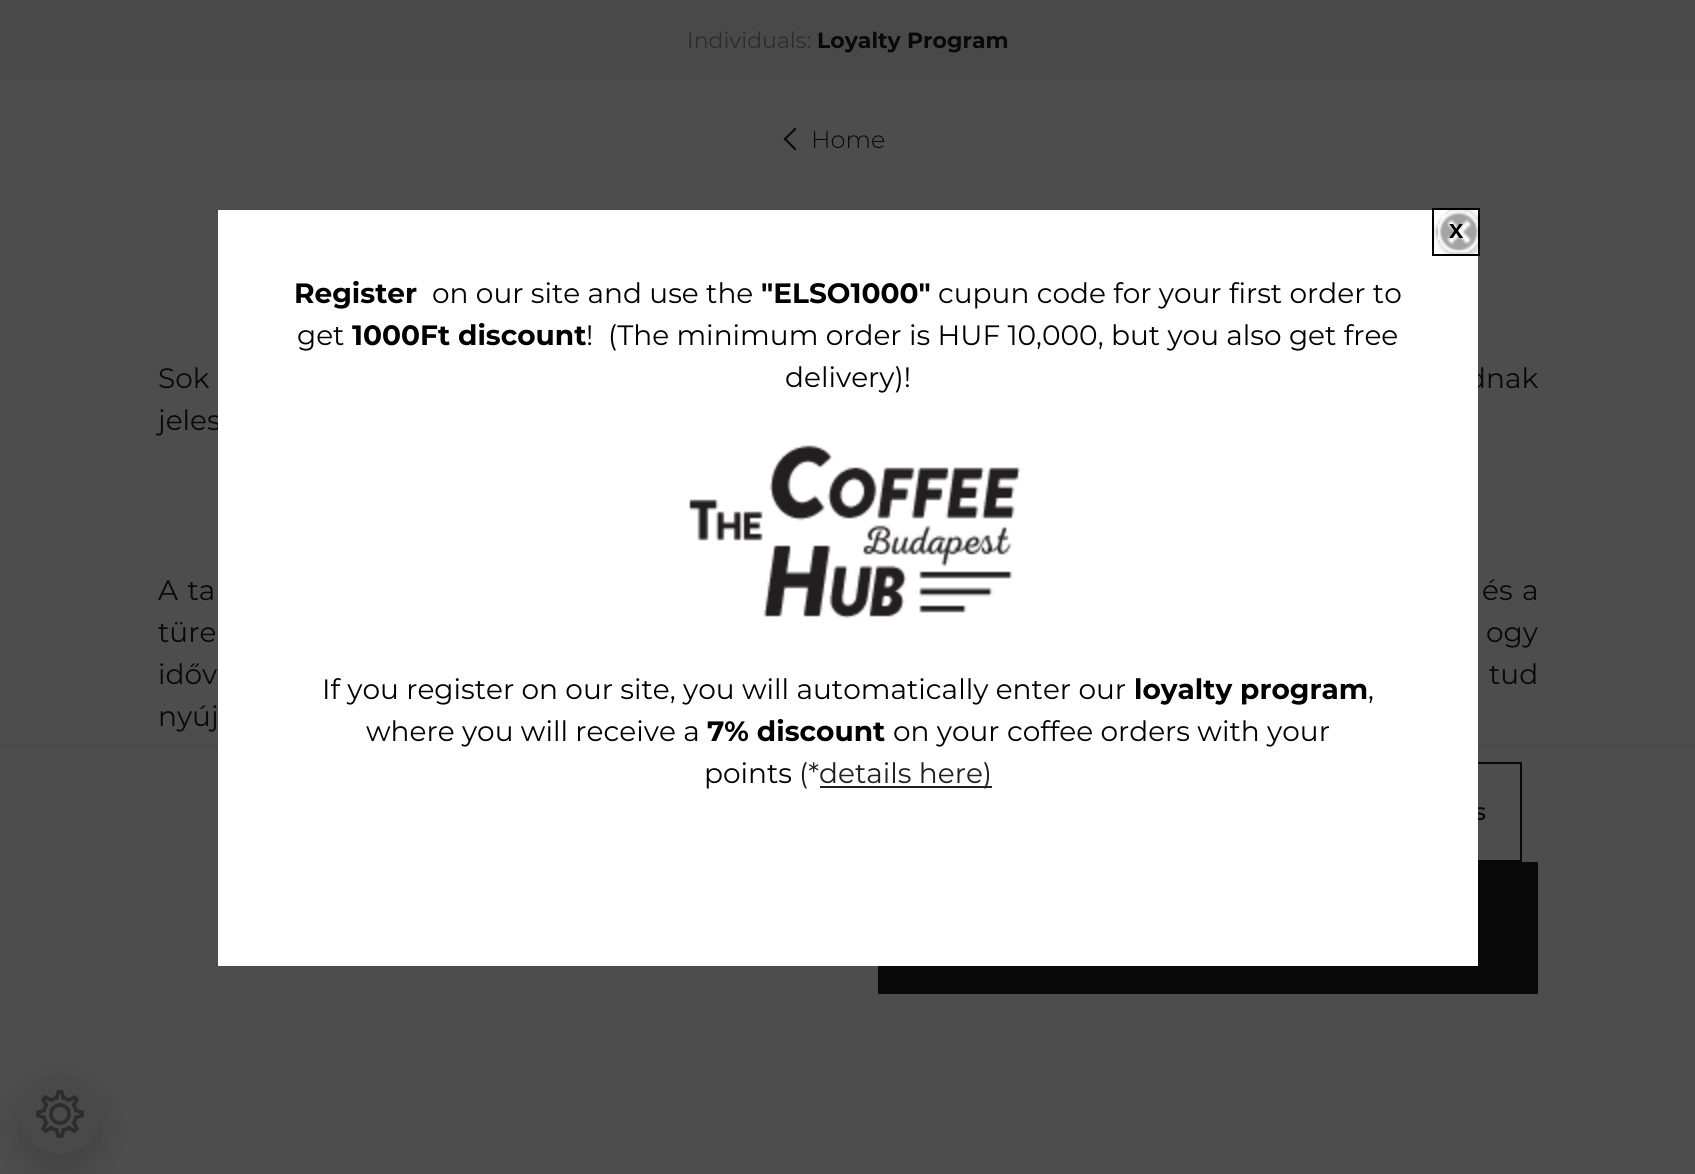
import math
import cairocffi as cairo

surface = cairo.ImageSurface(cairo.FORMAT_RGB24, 1695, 1174)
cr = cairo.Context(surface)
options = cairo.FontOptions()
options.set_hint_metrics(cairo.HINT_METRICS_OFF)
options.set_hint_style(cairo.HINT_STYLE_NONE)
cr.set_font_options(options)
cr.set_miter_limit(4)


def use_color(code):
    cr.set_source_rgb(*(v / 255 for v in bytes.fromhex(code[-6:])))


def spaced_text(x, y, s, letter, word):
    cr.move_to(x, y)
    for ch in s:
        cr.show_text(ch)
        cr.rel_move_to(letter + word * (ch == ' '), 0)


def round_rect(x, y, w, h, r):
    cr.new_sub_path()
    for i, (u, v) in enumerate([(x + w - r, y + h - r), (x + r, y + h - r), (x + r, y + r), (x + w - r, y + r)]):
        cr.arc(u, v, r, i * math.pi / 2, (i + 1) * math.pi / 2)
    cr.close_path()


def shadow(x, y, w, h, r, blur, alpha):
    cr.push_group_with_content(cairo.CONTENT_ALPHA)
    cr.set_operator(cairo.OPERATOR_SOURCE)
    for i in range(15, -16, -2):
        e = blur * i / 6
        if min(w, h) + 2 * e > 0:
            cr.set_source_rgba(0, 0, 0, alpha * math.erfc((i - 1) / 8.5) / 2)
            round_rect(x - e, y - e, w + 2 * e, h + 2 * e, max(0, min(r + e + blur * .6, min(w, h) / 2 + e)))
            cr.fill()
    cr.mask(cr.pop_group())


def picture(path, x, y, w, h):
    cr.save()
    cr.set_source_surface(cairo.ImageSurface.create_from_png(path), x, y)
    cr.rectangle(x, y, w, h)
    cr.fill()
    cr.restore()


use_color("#4d4d4d")
cr.paint()
use_color("#494949")
cr.rectangle(0, 0, 1695, 80)
cr.fill()
cr.select_font_face("Montserrat")
cr.set_font_size(22)
use_color("#2d2d2d")
cr.move_to(687, 48)
cr.show_text("Individuals:")
cr.select_font_face("Montserrat", cairo.FONT_SLANT_NORMAL, cairo.FONT_WEIGHT_BOLD)
use_color("#090909")
cr.move_to(817, 48)
cr.show_text("Loyalty Program")
use_color("#0a0a0a")
cr.new_path()
cr.move_to(796.5, 149)
cr.line_to(795, 150.5)
cr.line_to(783.5, 139)
cr.line_to(785, 137.5)
cr.close_path()
cr.fill()
cr.new_path()
cr.move_to(796.5, 129)
cr.line_to(785, 140.5)
cr.line_to(783.5, 139)
cr.line_to(795, 127.5)
cr.close_path()
cr.fill()
cr.select_font_face("Montserrat Light")
cr.set_font_size(24)
use_color("#090909")
cr.move_to(811, 148)
cr.show_text("Home")
cr.select_font_face("Montserrat")
cr.set_font_size(28)
spaced_text(158, 388, "Sok", 0, 13)
spaced_text(1467, 388, "dnak", 0, 13)
cr.move_to(158, 430)
cr.show_text("jeles")
spaced_text(158, 600, "A ta", 0, 2)
spaced_text(1482, 600, "és a", 0, 2)
spaced_text(158, 642, "türe", 0, 3)
spaced_text(1486, 642, "ogy", 0, 3)
spaced_text(158, 684, "időv", 0, 8)
spaced_text(1489, 684, "tud", 0, 8)
cr.move_to(158, 726)
cr.show_text("nyúj")
use_color("#494949")
cr.rectangle(0, 744, 1695, 2)
cr.fill()
cr.rectangle(1263, 763, 258, 98)
use_color("#090909")
cr.stroke()
cr.select_font_face("Montserrat Medium")
cr.set_font_size(24)
cr.move_to(1474, 820)
cr.show_text("s")
cr.rectangle(878, 862, 660, 132)
cr.fill()
use_color("#ffffff")
cr.rectangle(218, 210, 1260, 756)
cr.fill()
picture("img1.png", 1434, 210, 44, 44)
cr.rectangle(1433, 209, 46, 46)
use_color("#000000")
cr.stroke()
cr.select_font_face("Montserrat", cairo.FONT_SLANT_NORMAL, cairo.FONT_WEIGHT_BOLD)
cr.set_font_size(20)
cr.move_to(1449, 238)
cr.show_text("X")
cr.set_font_size(28)
cr.move_to(294, 303)
cr.show_text("Register")
cr.select_font_face("Montserrat")
cr.move_to(432, 303)
cr.show_text("on our site and use the")
cr.select_font_face("Montserrat", cairo.FONT_SLANT_NORMAL, cairo.FONT_WEIGHT_BOLD)
cr.move_to(761, 303)
cr.show_text("\"ELSO1000\"")
cr.select_font_face("Montserrat")
cr.move_to(938, 303)
cr.show_text("cupun code for your first order to")
cr.move_to(297, 345)
cr.show_text("get")
cr.select_font_face("Montserrat", cairo.FONT_SLANT_NORMAL, cairo.FONT_WEIGHT_BOLD)
cr.move_to(352, 345)
cr.show_text("1000Ft discount")
cr.select_font_face("Montserrat")
cr.move_to(586, 345)
cr.show_text("!  (The minimum order is HUF 10,000, but you also get free")
cr.move_to(785, 387)
cr.show_text("delivery)!")
picture("img2.png", 689, 445, 332, 174)
cr.move_to(322, 699)
cr.show_text("If you register on our site, you will automatically enter our")
cr.select_font_face("Montserrat", cairo.FONT_SLANT_NORMAL, cairo.FONT_WEIGHT_BOLD)
cr.move_to(1134, 699)
cr.show_text("loyalty program")
cr.select_font_face("Montserrat")
cr.move_to(1368, 699)
cr.show_text(",")
cr.move_to(366, 741)
cr.show_text("where you will receive a")
cr.select_font_face("Montserrat", cairo.FONT_SLANT_NORMAL, cairo.FONT_WEIGHT_BOLD)
cr.move_to(707, 741)
cr.show_text("7% discount")
cr.select_font_face("Montserrat")
cr.move_to(893, 741)
cr.show_text("on your coffee orders with your")
cr.move_to(704, 783)
cr.show_text("points")
use_color("#202020")
cr.move_to(799, 783)
cr.show_text("(*")
cr.rectangle(820, 786, 172, 2)
cr.fill()
cr.move_to(819, 783)
cr.show_text("details here)")
use_color("#000000")
shadow(20, 1090, 80, 80, 40, 16, 0.15)
use_color("#494949")
cr.arc(60, 1114, 40, 0, 2 * math.pi)
cr.fill()
picture("img3.png", 36, 1090, 48, 48)
surface.write_to_png("result.png")
